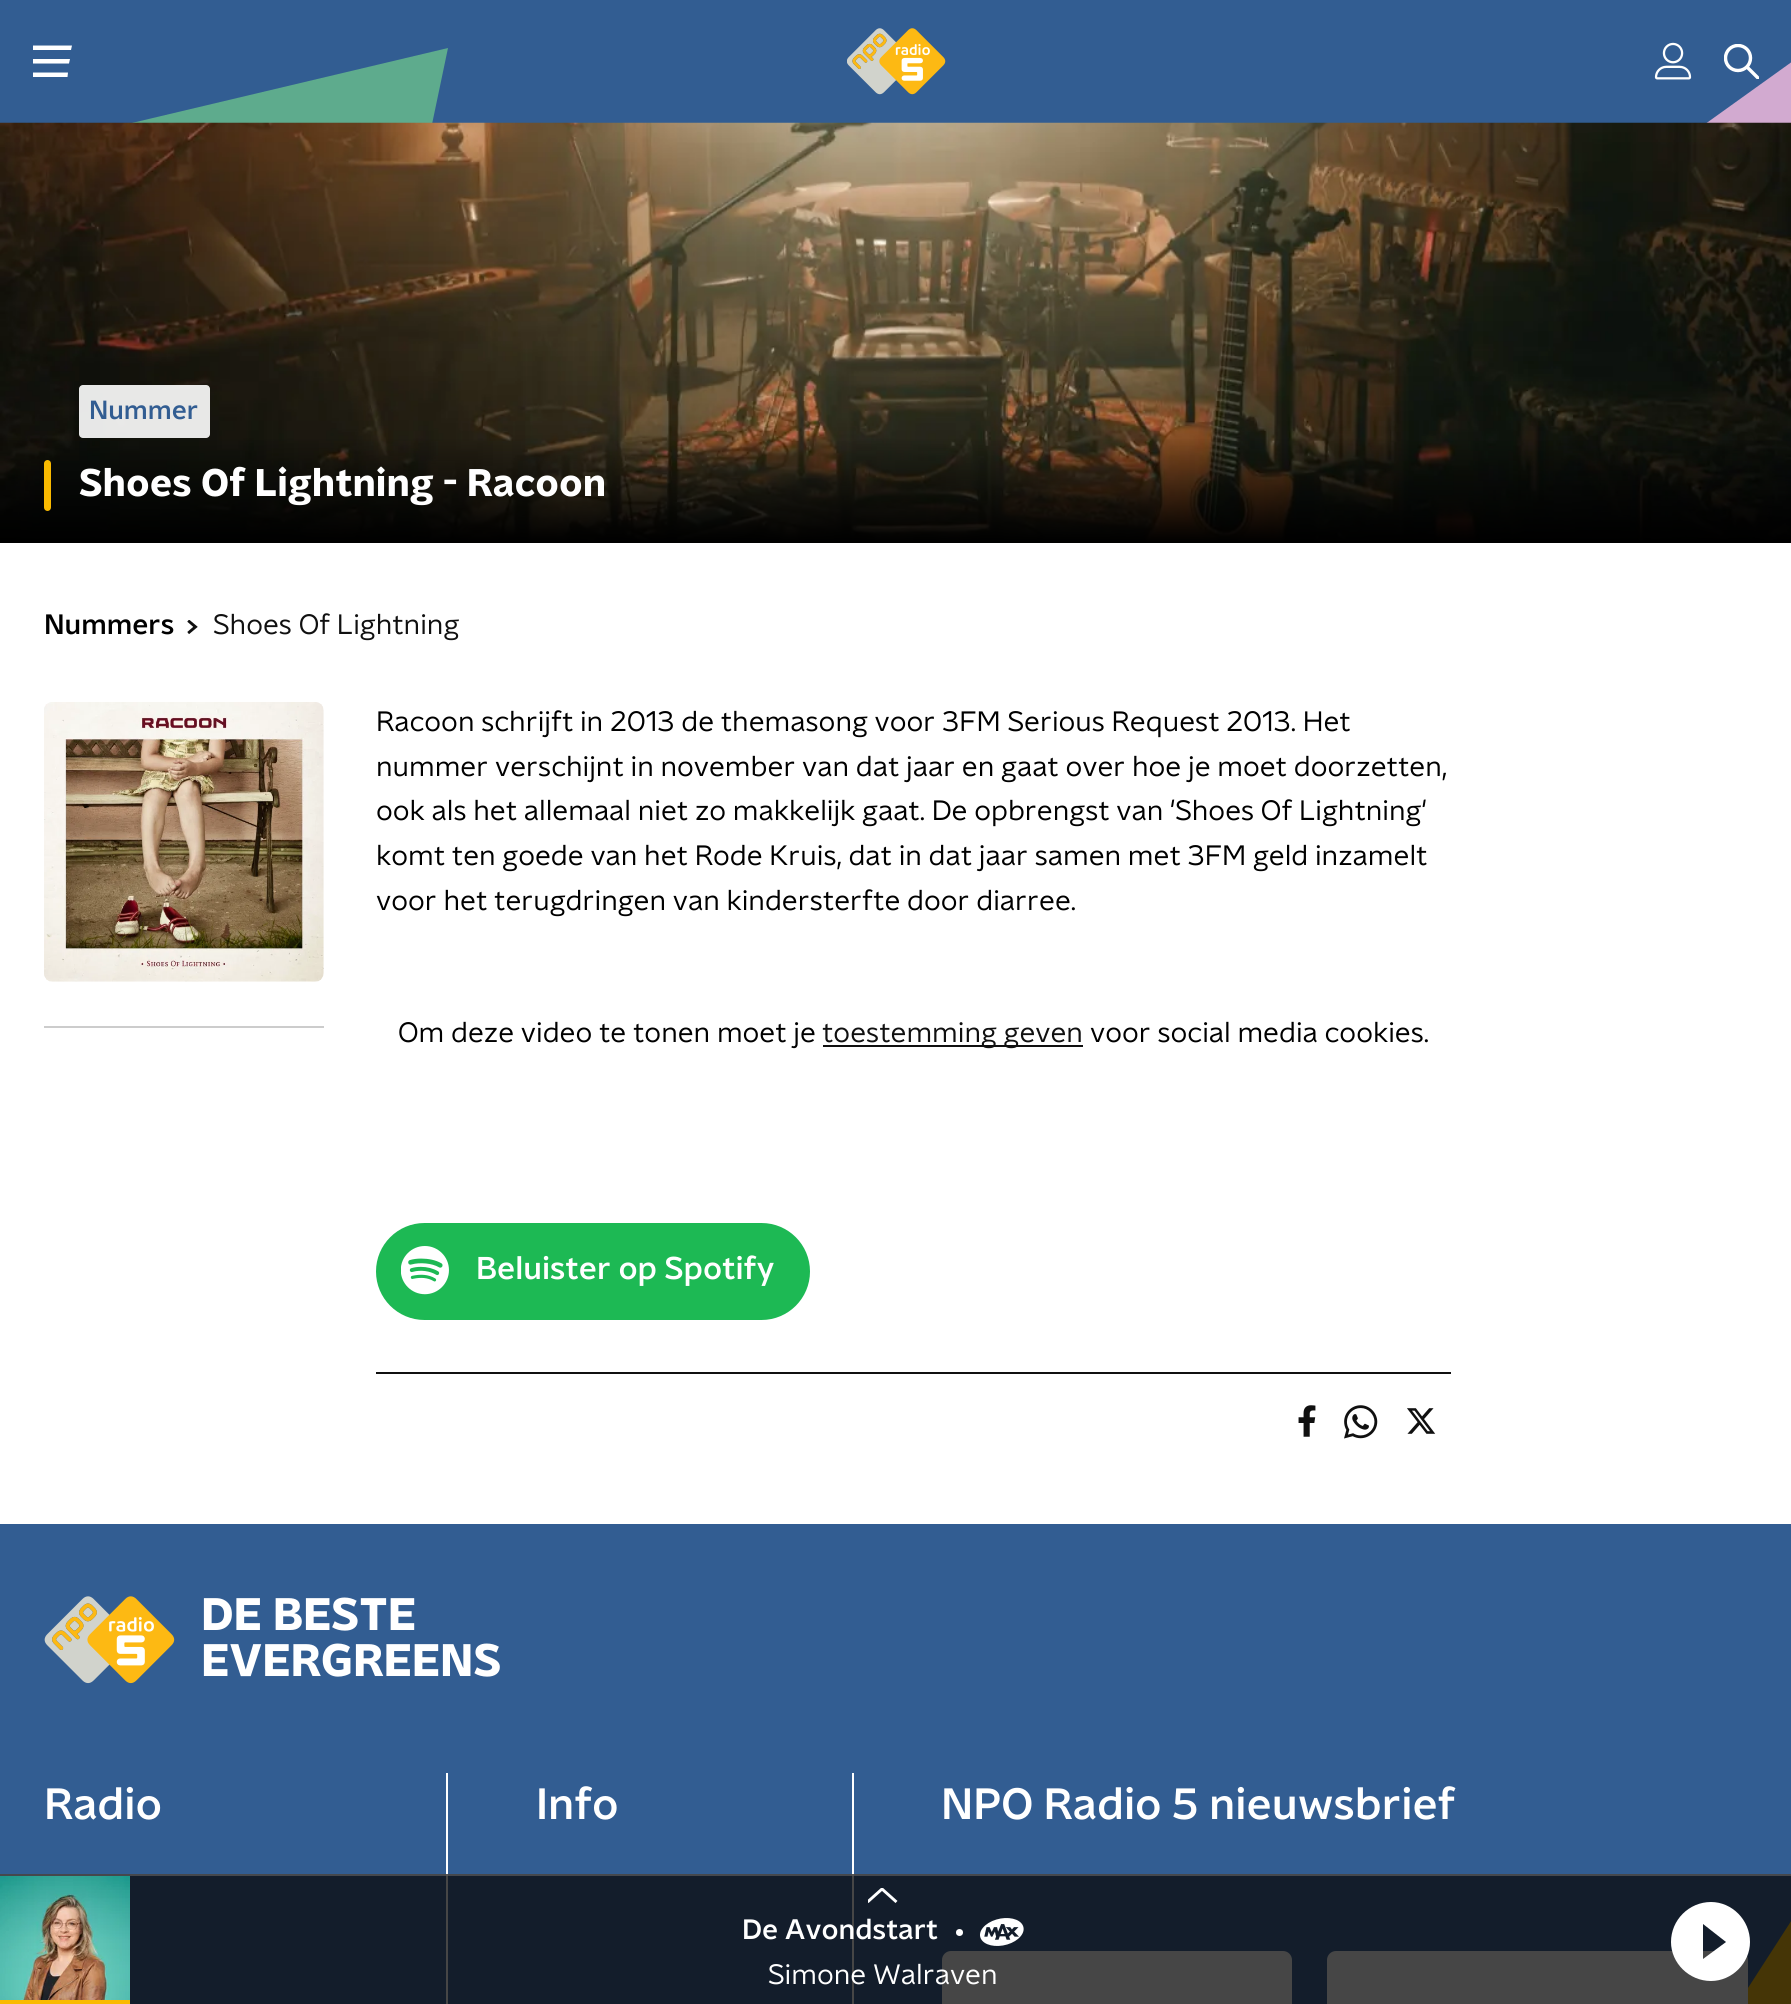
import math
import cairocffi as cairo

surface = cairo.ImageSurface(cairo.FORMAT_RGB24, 1791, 2004)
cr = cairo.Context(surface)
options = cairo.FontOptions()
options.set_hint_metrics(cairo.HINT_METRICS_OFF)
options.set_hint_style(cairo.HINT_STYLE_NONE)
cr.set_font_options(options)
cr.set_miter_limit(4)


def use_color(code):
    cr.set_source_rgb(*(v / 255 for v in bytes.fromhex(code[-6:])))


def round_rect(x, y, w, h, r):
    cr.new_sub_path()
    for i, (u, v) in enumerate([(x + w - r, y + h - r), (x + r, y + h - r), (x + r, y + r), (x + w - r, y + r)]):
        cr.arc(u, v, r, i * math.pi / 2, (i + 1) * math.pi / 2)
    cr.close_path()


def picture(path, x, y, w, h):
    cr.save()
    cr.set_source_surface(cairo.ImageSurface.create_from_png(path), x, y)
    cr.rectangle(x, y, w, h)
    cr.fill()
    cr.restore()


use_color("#ffffff")
cr.paint()
use_color("#325d92")
cr.rectangle(0, 0, 1791, 123)
cr.fill()
use_color("#ffffff")
cr.new_path()
cr.move_to(33, 45.5)
cr.line_to(72, 45.5)
cr.line_to(71, 50)
cr.line_to(33, 50)
cr.close_path()
cr.move_to(33, 59)
cr.line_to(70, 59)
cr.line_to(69, 63.5)
cr.line_to(33, 63.5)
cr.close_path()
cr.move_to(33, 72.5)
cr.line_to(68, 72.5)
cr.line_to(67.5, 77)
cr.line_to(33, 77)
cr.close_path()
cr.fill()
picture("img1.png", 847, 28, 99, 67)
picture("img2.png", 1654, 42, 38, 38)
cr.save()
cr.rectangle(0, 0, 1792, 123)
cr.clip()
use_color("#d2aad0")
cr.new_path()
cr.move_to(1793, 61)
cr.line_to(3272, 1303)
cr.line_to(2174, 1968)
cr.line_to(455, 1020)
cr.line_to(457, 1019)
cr.close_path()
cr.fill()
cr.restore()
cr.save()
cr.rectangle(1724, 44, 35, 35)
cr.clip()
cr.arc(1738, 58, 12.5, 0, 2 * math.pi)
cr.set_line_width(3.4)
cr.stroke()
cr.new_path()
cr.move_to(1747.5, 67.5)
cr.line_to(1758, 78)
cr.set_line_cap(cairo.LINE_CAP_SQUARE)
cr.stroke()
cr.restore()
cr.save()
cr.rectangle(0, 47, 448, 76)
cr.clip()
use_color("#5eab8d")
cr.new_path()
cr.move_to(448, 48)
cr.line_to(191, 1273)
cr.line_to(-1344, 1638)
cr.line_to(-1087, 412)
cr.close_path()
cr.fill()
cr.restore()
picture("img3.png", 0, 122, 1791, 420)
gradient = cairo.LinearGradient(896, 437, 896, 543)
gradient.add_color_stop_rgba(0, 0, 0, 0, 0)
gradient.add_color_stop_rgba(1, 0, 0, 0, 1)
cr.set_source(gradient)
cr.rectangle(0, 439, 1791, 104)
cr.fill()
cr.set_source_rgba(1, 1, 1, 0.9)
round_rect(79, 385, 131, 53, 4)
cr.fill()
cr.select_font_face("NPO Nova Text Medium")
cr.set_font_size(26.25)
use_color("#325d92")
cr.move_to(89, 419)
cr.show_text("Nummer")
use_color("#faba00")
round_rect(44, 460, 7, 51, 3.5)
cr.fill()
cr.select_font_face("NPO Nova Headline", cairo.FONT_SLANT_NORMAL, cairo.FONT_WEIGHT_BOLD)
cr.set_font_size(38.5)
use_color("#ffffff")
cr.move_to(79, 496)
cr.show_text("Shoes Of Lightning - Racoon")
cr.select_font_face("NPO Nova Text Medium")
cr.set_font_size(28)
use_color("#000000")
cr.move_to(44, 634)
cr.show_text("Nummers")
picture("img4.png", 187, 620, 11, 14)
cr.select_font_face("NPO Nova Text")
use_color("#101010")
cr.move_to(213, 634)
cr.show_text("Shoes Of Lightning")
picture("img5.png", 44, 702, 280, 280)
use_color("#cccccc")
cr.rectangle(44, 1026, 280, 2)
cr.fill()
use_color("#000000")
cr.move_to(376, 731)
cr.show_text("Racoon schrijft in 2013 de themasong voor 3FM Serious Request 2013. Het")
cr.move_to(376, 776)
cr.show_text("nummer verschijnt in november van dat jaar en gaat over hoe je moet doorzetten,")
cr.move_to(376, 820)
cr.show_text("ook als het allemaal niet zo makkelijk gaat. De opbrengst van 'Shoes Of Lightning'")
cr.move_to(376, 865)
cr.show_text("komt ten goede van het Rode Kruis, dat in dat jaar samen met 3FM geld inzamelt")
cr.move_to(376, 910)
cr.show_text("voor het terugdringen van kindersterfte door diarree.")
cr.move_to(398, 1042)
cr.show_text("Om deze video te tonen moet je")
use_color("#101010")
cr.rectangle(823, 1045, 260, 2)
cr.fill()
cr.move_to(822, 1042)
cr.show_text("toestemming geven")
use_color("#000000")
cr.move_to(1090, 1042)
cr.show_text("voor social media cookies.")
use_color("#1db954")
round_rect(376, 1223, 434, 97, 48.5)
cr.fill()
picture("img6.png", 401, 1246, 48, 49)
cr.select_font_face("NPO Nova Text Medium")
cr.set_font_size(31.5)
use_color("#ffffff")
cr.move_to(476, 1279)
cr.show_text("Beluister op Spotify")
use_color("#101010")
cr.rectangle(376, 1372, 1075, 2)
cr.fill()
picture("img7.png", 1298, 1405, 18, 32)
picture("img8.png", 1344, 1405, 34, 34)
picture("img9.png", 1407, 1408, 29, 26)
use_color("#325d92")
cr.rectangle(0, 1524, 1791, 480)
cr.fill()
picture("img10.png", 44, 1596, 131, 88)
cr.select_font_face("NPO Nova Headline", cairo.FONT_SLANT_NORMAL, cairo.FONT_WEIGHT_BOLD)
cr.set_font_size(45.5)
use_color("#ffffff")
cr.move_to(201, 1630)
cr.show_text("DE BESTE")
cr.move_to(201, 1676)
cr.show_text("EVERGREENS")
cr.rectangle(852, 1773, 2, 231)
cr.fill()
cr.select_font_face("NPO Nova Text Medium")
cr.set_font_size(43.75)
cr.move_to(44, 1819)
cr.show_text("Radio")
cr.rectangle(446, 1773, 2, 231)
cr.fill()
cr.move_to(536, 1819)
cr.show_text("Info")
cr.move_to(941, 1819)
cr.show_text("NPO Radio 5 nieuwsbrief")
round_rect(942, 1951, 350, 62, 9)
cr.fill()
use_color("#faba00")
cr.new_path()
cr.move_to(1541, 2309)
cr.line_to(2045, 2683)
cr.line_to(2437, 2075)
cr.line_to(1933, 1701)
cr.close_path()
cr.fill()
use_color("#ffffff")
round_rect(1327, 1951, 421, 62, 9)
cr.fill()
cr.set_source_rgba(0.035, 0.035, 0.035, 0.75)
cr.rectangle(0, 1874, 1791, 130)
cr.fill()
cr.set_source_rgba(0.373, 0.373, 0.373, 0.65)
cr.rectangle(0, 1874, 1791, 2)
cr.fill()
picture("img11.png", 0, 1876, 130, 124)
use_color("#faba00")
cr.rectangle(0, 2000, 130, 4)
cr.fill()
cr.save()
cr.rectangle(868, 1888, 32, 16)
cr.clip()
cr.new_path()
cr.move_to(896.5, 1902)
cr.line_to(882, 1889)
cr.line_to(867.5, 1902)
use_color("#ffffff")
cr.set_line_width(2.9)
cr.stroke()
cr.restore()
cr.set_font_size(28)
use_color("#ffffff")
cr.move_to(742, 1939)
cr.show_text("De Avondstart")
cr.new_path()
cr.arc(959.5, 1932.5, 3.5, 0, 2 * math.pi)
cr.fill()
picture("img12.png", 980, 1918, 44, 28)
cr.select_font_face("NPO Nova Text")
cr.move_to(768, 1984)
cr.show_text("Simone Walraven")
cr.new_path()
cr.move_to(1711, 1902)
cr.curve_to(1689, 1902, 1671, 1920, 1671, 1942)
cr.curve_to(1671, 1963, 1689, 1981, 1711, 1981)
cr.curve_to(1732, 1981, 1750, 1963, 1750, 1942)
cr.curve_to(1750, 1920, 1732, 1902, 1711, 1902)
cr.close_path()
cr.move_to(1703, 1959)
cr.line_to(1703, 1924)
cr.line_to(1726, 1942)
cr.close_path()
cr.fill()
surface.write_to_png("result.png")
